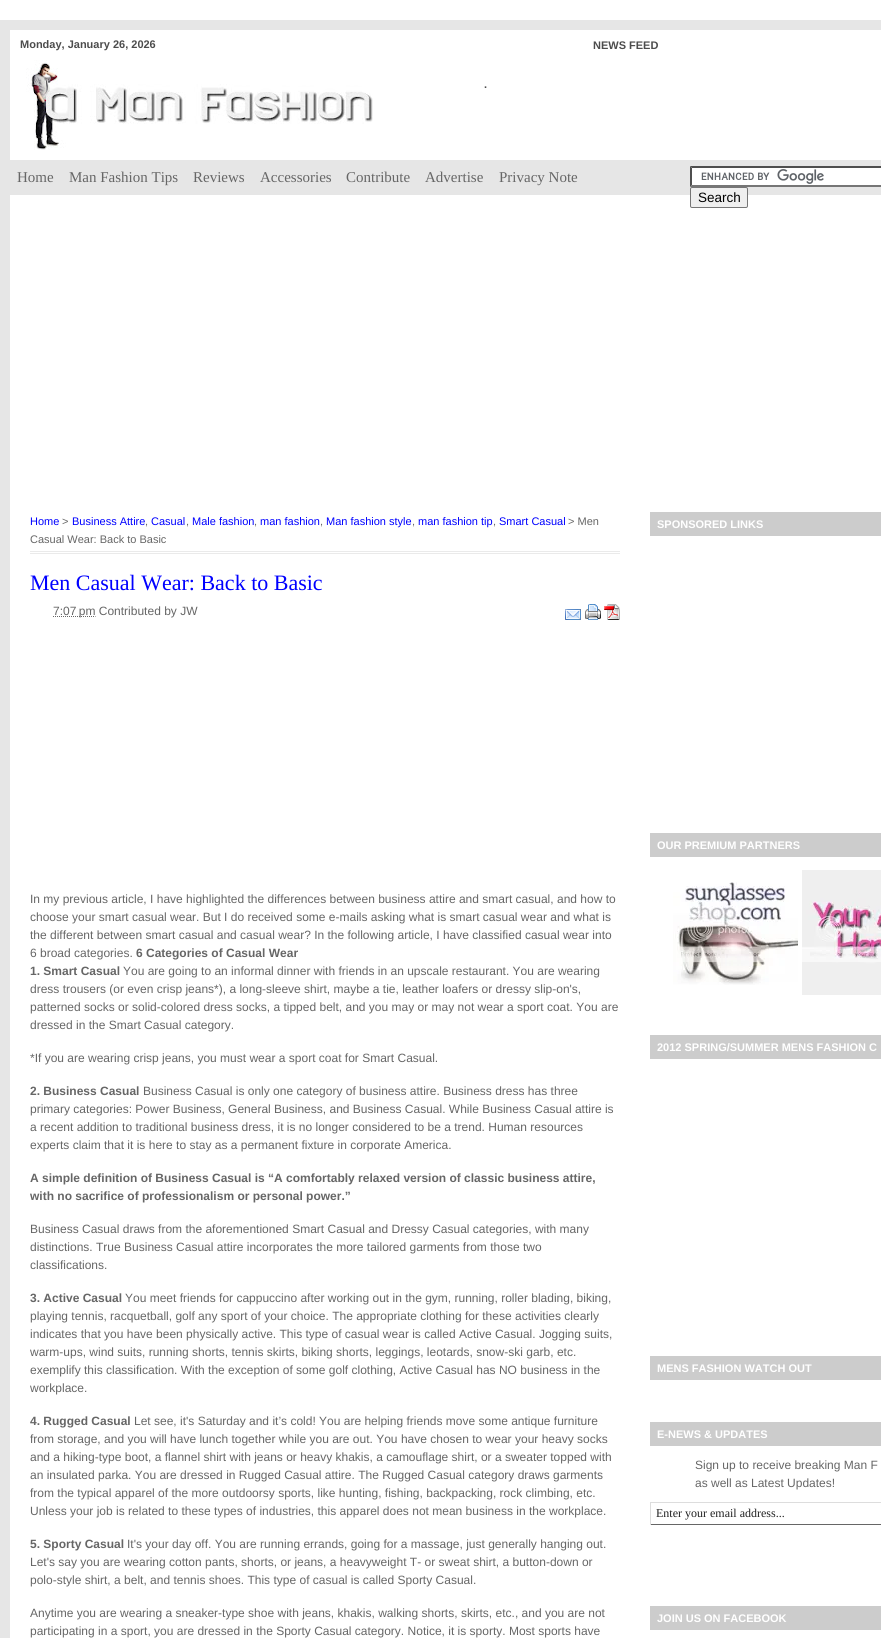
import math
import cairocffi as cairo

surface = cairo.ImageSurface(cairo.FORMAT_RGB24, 881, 1638)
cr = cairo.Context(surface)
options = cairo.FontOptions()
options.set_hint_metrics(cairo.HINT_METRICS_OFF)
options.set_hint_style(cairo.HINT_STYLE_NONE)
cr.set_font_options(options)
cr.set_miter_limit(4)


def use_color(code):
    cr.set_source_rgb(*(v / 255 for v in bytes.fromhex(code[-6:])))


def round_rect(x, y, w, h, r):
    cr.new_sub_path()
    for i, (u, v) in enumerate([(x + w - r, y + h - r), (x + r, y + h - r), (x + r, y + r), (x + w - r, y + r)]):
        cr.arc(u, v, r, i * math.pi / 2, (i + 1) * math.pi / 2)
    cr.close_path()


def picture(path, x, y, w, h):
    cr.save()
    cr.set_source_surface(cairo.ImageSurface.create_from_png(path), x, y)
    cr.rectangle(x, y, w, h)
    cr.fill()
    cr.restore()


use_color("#ffffff")
cr.paint()
cr.rectangle(5, 25, 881, 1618)
use_color("#e6e6e6")
cr.set_line_width(10)
cr.stroke()
cr.select_font_face("Liberation Sans", cairo.FONT_SLANT_NORMAL, cairo.FONT_WEIGHT_BOLD)
cr.set_font_size(11)
use_color("#4c4c4c")
cr.move_to(20, 48)
cr.show_text("Monday, January 26, 2026")
cr.move_to(593, 49)
cr.show_text("NEWS FEED")
picture("img1.png", 26, 60, 347, 90)
cr.move_to(484, 88)
cr.show_text(".")
use_color("#e6e6e6")
cr.rectangle(10, 160, 871, 35)
cr.fill()
cr.select_font_face("Liberation Serif")
cr.set_font_size(15)
use_color("#666666")
cr.move_to(17, 182)
cr.show_text("Home")
cr.move_to(69, 182)
cr.show_text("Man Fashion Tips")
cr.move_to(193, 182)
cr.show_text("Reviews")
cr.move_to(260, 182)
cr.show_text("Accessories")
cr.move_to(346, 182)
cr.show_text("Contribute")
cr.move_to(425, 182)
cr.show_text("Advertise")
cr.move_to(499, 182)
cr.show_text("Privacy Note")
use_color("#ffffff")
cr.rectangle(690, 166, 191, 21)
cr.fill()
picture("img2.png", 701, 169, 123, 15)
use_color("#4f4f4f")
cr.new_path()
cr.move_to(690, 166)
cr.line_to(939, 166)
cr.line_to(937, 168)
cr.line_to(692, 168)
cr.close_path()
cr.fill()
use_color("#767676")
cr.new_path()
cr.move_to(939, 187)
cr.line_to(690, 187)
cr.line_to(692, 185)
cr.line_to(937, 185)
cr.close_path()
cr.fill()
use_color("#4f4f4f")
cr.new_path()
cr.move_to(690, 187)
cr.line_to(690, 166)
cr.line_to(692, 168)
cr.line_to(692, 185)
cr.close_path()
cr.fill()
use_color("#efefef")
round_rect(690.5, 187.5, 57, 20, 1.5)
cr.fill_preserve()
use_color("#767676")
cr.set_line_width(1)
cr.stroke()
cr.select_font_face("Liberation Sans")
cr.set_font_size(13.5)
use_color("#000000")
cr.move_to(698, 202)
cr.show_text("Search")
use_color("#eaeaea")
cr.rectangle(30, 551, 590, 1)
cr.fill()
cr.rectangle(30, 553, 590, 1)
cr.fill()
cr.set_font_size(11)
use_color("#0000ff")
cr.move_to(30, 525)
cr.show_text("Home")
use_color("#666666")
cr.move_to(62, 525)
cr.show_text(">")
use_color("#0000ff")
cr.move_to(72, 525)
cr.show_text("Business Attire")
use_color("#666666")
cr.move_to(145, 525)
cr.show_text(",")
use_color("#0000ff")
cr.move_to(151, 525)
cr.show_text("Casual")
use_color("#666666")
cr.move_to(186, 525)
cr.show_text(",")
use_color("#0000ff")
cr.move_to(192, 525)
cr.show_text("Male fashion")
use_color("#666666")
cr.move_to(254, 525)
cr.show_text(",")
use_color("#0000ff")
cr.move_to(260, 525)
cr.show_text("man fashion")
use_color("#666666")
cr.move_to(320, 525)
cr.show_text(",")
use_color("#0000ff")
cr.move_to(326, 525)
cr.show_text("Man fashion style")
use_color("#666666")
cr.move_to(412, 525)
cr.show_text(",")
use_color("#0000ff")
cr.move_to(418, 525)
cr.show_text("man fashion tip")
use_color("#666666")
cr.move_to(493, 525)
cr.show_text(",")
use_color("#0000ff")
cr.move_to(499, 525)
cr.show_text("Smart Casual")
use_color("#666666")
cr.move_to(568, 525)
cr.show_text("> Men")
cr.move_to(30, 543)
cr.show_text("Casual Wear: Back to Basic")
cr.select_font_face("Liberation Serif")
cr.set_font_size(22)
use_color("#0000ff")
cr.move_to(30, 590)
cr.show_text("Men Casual Wear: Back to Basic")
cr.new_path()
cr.move_to(53, 616.5)
cr.line_to(95.5, 616.5)
use_color("#666666")
cr.set_dash([1, 1])
cr.stroke()
cr.select_font_face("Liberation Sans")
cr.set_font_size(12)
cr.move_to(53, 615)
cr.show_text("7:07 pm Contributed by JW")
picture("img3.png", 565, 609, 16, 11)
picture("img4.png", 585, 604, 16, 16)
picture("img5.png", 604, 604, 16, 16)
cr.move_to(30, 903)
cr.show_text("In my previous article, I have highlighted the differences between business attire and smart casual, and how to")
cr.move_to(30, 921)
cr.show_text("choose your smart casual wear. But I do received some e-mails asking what is smart casual wear and what is")
cr.move_to(30, 939)
cr.show_text("the different between smart casual and casual wear? In the following article, I have classified casual wear into")
cr.move_to(30, 957)
cr.show_text("6 broad categories.")
cr.select_font_face("Liberation Sans", cairo.FONT_SLANT_NORMAL, cairo.FONT_WEIGHT_BOLD)
cr.move_to(136, 957)
cr.show_text("6 Categories of Casual Wear")
cr.move_to(30, 975)
cr.show_text("1. Smart Casual")
cr.select_font_face("Liberation Sans")
cr.move_to(123, 975)
cr.show_text("You are going to an informal dinner with friends in an upscale restaurant. You are wearing")
cr.move_to(30, 993)
cr.show_text("dress trousers (or even crisp jeans*), a long-sleeve shirt, maybe a tie, leather loafers or dressy slip-on's,")
cr.move_to(30, 1011)
cr.show_text("patterned socks or solid-colored dress socks, a tipped belt, and you may or may not wear a sport coat. You are")
cr.move_to(30, 1029)
cr.show_text("dressed in the Smart Casual category.")
cr.move_to(30, 1062)
cr.show_text("*If you are wearing crisp jeans, you must wear a sport coat for Smart Casual.")
cr.select_font_face("Liberation Sans", cairo.FONT_SLANT_NORMAL, cairo.FONT_WEIGHT_BOLD)
cr.move_to(30, 1095)
cr.show_text("2. Business Casual")
cr.select_font_face("Liberation Sans")
cr.move_to(143, 1095)
cr.show_text("Business Casual is only one category of business attire. Business dress has three")
cr.move_to(30, 1113)
cr.show_text("primary categories: Power Business, General Business, and Business Casual. While Business Casual attire is")
cr.move_to(30, 1131)
cr.show_text("a recent addition to traditional business dress, it is no longer considered to be a trend. Human resources")
cr.move_to(30, 1149)
cr.show_text("experts claim that it is here to stay as a permanent fixture in corporate America.")
cr.select_font_face("Liberation Sans", cairo.FONT_SLANT_NORMAL, cairo.FONT_WEIGHT_BOLD)
cr.move_to(30, 1182)
cr.show_text("A simple definition of Business Casual is “A comfortably relaxed version of classic business attire,")
cr.move_to(30, 1200)
cr.show_text("with no sacrifice of professionalism or personal power.”")
cr.select_font_face("Liberation Sans")
cr.move_to(30, 1233)
cr.show_text("Business Casual draws from the aforementioned Smart Casual and Dressy Casual categories, with many")
cr.move_to(30, 1251)
cr.show_text("distinctions. True Business Casual attire incorporates the more tailored garments from those two")
cr.move_to(30, 1269)
cr.show_text("classifications.")
cr.select_font_face("Liberation Sans", cairo.FONT_SLANT_NORMAL, cairo.FONT_WEIGHT_BOLD)
cr.move_to(30, 1302)
cr.show_text("3. Active Casual")
cr.select_font_face("Liberation Sans")
cr.move_to(125, 1302)
cr.show_text("You meet friends for cappuccino after working out in the gym, running, roller blading, biking,")
cr.move_to(30, 1320)
cr.show_text("playing tennis, racquetball, golf any sport of your choice. The appropriate clothing for these activities clearly")
cr.move_to(30, 1338)
cr.show_text("indicates that you have been physically active. This type of casual wear is called Active Casual. Jogging suits,")
cr.move_to(30, 1356)
cr.show_text("warm-ups, wind suits, running shorts, tennis skirts, biking shorts, leggings, leotards, snow-ski garb, etc.")
cr.move_to(30, 1374)
cr.show_text("exemplify this classification. With the exception of some golf clothing, Active Casual has NO business in the")
cr.move_to(30, 1392)
cr.show_text("workplace.")
cr.select_font_face("Liberation Sans", cairo.FONT_SLANT_NORMAL, cairo.FONT_WEIGHT_BOLD)
cr.move_to(30, 1425)
cr.show_text("4. Rugged Casual")
cr.select_font_face("Liberation Sans")
cr.move_to(134, 1425)
cr.show_text("Let see, it's Saturday and it’s cold! You are helping friends move some antique furniture")
cr.move_to(30, 1443)
cr.show_text("from storage, and you will have lunch together while you are out. You have chosen to wear your heavy socks")
cr.move_to(30, 1461)
cr.show_text("and a hiking-type boot, a flannel shirt with jeans or heavy khakis, a camouflage shirt, or a sweater topped with")
cr.move_to(30, 1479)
cr.show_text("an insulated parka. You are dressed in Rugged Casual attire. The Rugged Casual category draws garments")
cr.move_to(30, 1497)
cr.show_text("from the typical apparel of the more outdoorsy sports, like hunting, fishing, backpacking, rock climbing, etc.")
cr.move_to(30, 1515)
cr.show_text("Unless your job is related to these types of industries, this apparel does not mean business in the workplace.")
cr.select_font_face("Liberation Sans", cairo.FONT_SLANT_NORMAL, cairo.FONT_WEIGHT_BOLD)
cr.move_to(30, 1548)
cr.show_text("5. Sporty Casual")
cr.select_font_face("Liberation Sans")
cr.move_to(127, 1548)
cr.show_text("It's your day off. You are running errands, going for a massage, just generally hanging out.")
cr.move_to(30, 1566)
cr.show_text("Let's say you are wearing cotton pants, shorts, or jeans, a heavyweight T- or sweat shirt, a button-down or")
cr.move_to(30, 1584)
cr.show_text("polo-style shirt, a belt, and tennis shoes. This type of casual is called Sporty Casual.")
cr.move_to(30, 1617)
cr.show_text("Anytime you are wearing a sneaker-type shoe with jeans, khakis, walking shorts, skirts, etc., and you are not")
cr.move_to(30, 1635)
cr.show_text("participating in a sport, you are dressed in the Sporty Casual category. Notice, it is sporty. Most sports have")
use_color("#cccccc")
cr.rectangle(650, 512, 231, 24)
cr.fill()
cr.select_font_face("Liberation Sans", cairo.FONT_SLANT_NORMAL, cairo.FONT_WEIGHT_BOLD)
cr.set_font_size(11)
use_color("#ffffff")
cr.move_to(657, 528)
cr.show_text("SPONSORED LINKS")
use_color("#cccccc")
cr.rectangle(650, 833, 231, 24)
cr.fill()
use_color("#ffffff")
cr.move_to(657, 849)
cr.show_text("OUR PREMIUM PARTNERS")
picture("img6.png", 673, 882, 125, 103)
picture("img7.png", 802, 870, 79, 125)
use_color("#cccccc")
cr.rectangle(650, 1035, 231, 24)
cr.fill()
use_color("#ffffff")
cr.move_to(657, 1051)
cr.show_text("2012 SPRING/SUMMER MENS FASHION C")
use_color("#cccccc")
cr.rectangle(650, 1356, 231, 24)
cr.fill()
use_color("#ffffff")
cr.move_to(657, 1372)
cr.show_text("MENS FASHION WATCH OUT")
use_color("#cccccc")
cr.rectangle(650, 1422, 231, 24)
cr.fill()
use_color("#ffffff")
cr.move_to(657, 1438)
cr.show_text("E-NEWS & UPDATES")
cr.select_font_face("Liberation Sans")
cr.set_font_size(12)
use_color("#666666")
cr.move_to(695, 1469)
cr.show_text("Sign up to receive breaking Man F")
cr.move_to(695, 1487)
cr.show_text("as well as Latest Updates!")
use_color("#dddddd")
cr.rectangle(650, 1502, 231, 1)
cr.fill()
use_color("#666666")
cr.rectangle(650, 1524, 231, 1)
cr.fill()
use_color("#dddddd")
cr.rectangle(650, 1502, 1, 23)
cr.fill()
cr.select_font_face("Liberation Serif")
use_color("#202020")
cr.move_to(656, 1517)
cr.show_text("Enter your email address...")
use_color("#cccccc")
cr.rectangle(650, 1606, 231, 24)
cr.fill()
cr.select_font_face("Liberation Sans", cairo.FONT_SLANT_NORMAL, cairo.FONT_WEIGHT_BOLD)
cr.set_font_size(11)
use_color("#ffffff")
cr.move_to(657, 1622)
cr.show_text("JOIN US ON FACEBOOK")
surface.write_to_png("result.png")
